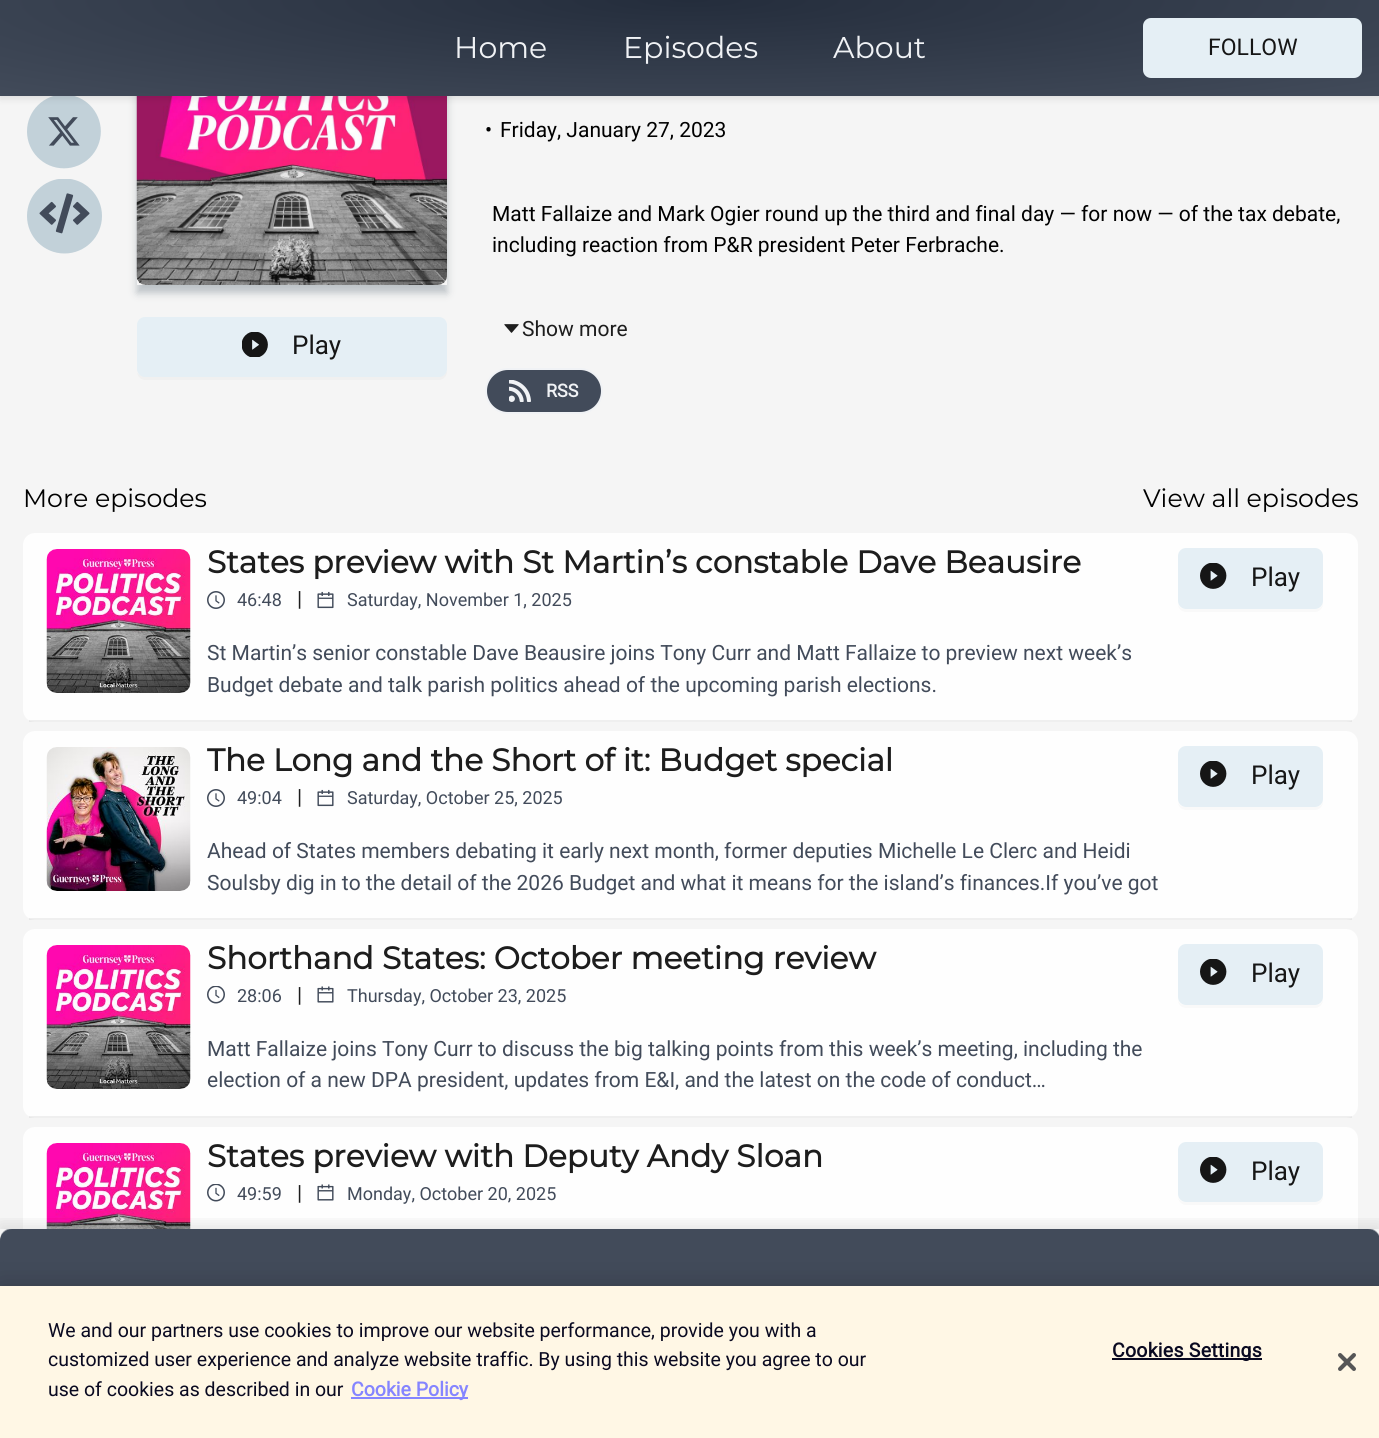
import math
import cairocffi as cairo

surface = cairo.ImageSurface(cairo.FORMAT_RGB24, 1379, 1438)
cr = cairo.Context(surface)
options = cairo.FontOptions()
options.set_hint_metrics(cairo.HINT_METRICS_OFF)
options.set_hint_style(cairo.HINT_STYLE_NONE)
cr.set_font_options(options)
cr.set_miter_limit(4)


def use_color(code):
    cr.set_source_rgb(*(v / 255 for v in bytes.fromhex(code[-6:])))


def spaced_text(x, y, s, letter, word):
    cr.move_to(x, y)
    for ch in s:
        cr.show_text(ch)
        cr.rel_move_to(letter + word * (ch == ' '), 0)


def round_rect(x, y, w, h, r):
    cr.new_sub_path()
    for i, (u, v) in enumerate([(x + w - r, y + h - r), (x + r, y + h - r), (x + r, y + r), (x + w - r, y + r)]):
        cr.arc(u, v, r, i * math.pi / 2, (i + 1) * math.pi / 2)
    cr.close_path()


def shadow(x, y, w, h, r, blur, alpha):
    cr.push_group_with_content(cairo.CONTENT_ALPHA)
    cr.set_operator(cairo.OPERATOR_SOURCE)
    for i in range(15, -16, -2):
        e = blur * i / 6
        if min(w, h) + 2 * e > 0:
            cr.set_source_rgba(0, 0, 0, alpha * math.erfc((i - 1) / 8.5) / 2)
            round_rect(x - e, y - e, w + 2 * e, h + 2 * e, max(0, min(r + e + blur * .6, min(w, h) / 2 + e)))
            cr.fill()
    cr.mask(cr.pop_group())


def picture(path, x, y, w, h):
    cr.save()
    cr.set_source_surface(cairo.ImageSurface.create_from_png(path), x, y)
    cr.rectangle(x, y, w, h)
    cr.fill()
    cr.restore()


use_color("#f5f5f5")
cr.paint()
picture("img1.png", 27, 96, 74, 73)
cr.save()
cr.set_fill_rule(cairo.FILL_RULE_EVEN_ODD)
cr.new_path()
cr.move_to(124, 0)
cr.line_to(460, 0)
cr.line_to(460, 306)
cr.line_to(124, 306)
cr.close_path()
cr.move_to(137, -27)
cr.line_to(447, -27)
cr.line_to(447, 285)
cr.line_to(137, 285)
cr.close_path()
cr.clip()
use_color("#bdc3c7")
shadow(137, -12, 310, 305, 0, 4, 1)
cr.restore()
picture("img3.png", 136, 96, 311, 189)
use_color("#000000")
shadow(0, 2, 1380, 96, 0, 4, 0.12)
gradient = cairo.RadialGradient(0, 0, 0, 0, 0, 1)
gradient.set_matrix(cairo.Matrix(1 / 976, 0, 0, 1 / 136, -1 * 690 / 976, -1 * 0 / 136))
gradient.add_color_stop_rgba(0, 0.141, 0.176, 0.235, 1)
gradient.add_color_stop_rgba(1, 0.259, 0.294, 0.353, 1)
cr.set_source(gradient)
cr.rectangle(0, 0, 1379, 96)
cr.fill()
cr.select_font_face("Montserrat Thin")
cr.set_font_size(30)
use_color("#f0f2f5")
cr.move_to(454, 58)
cr.show_text("Home")
cr.move_to(623, 58)
cr.show_text("Episodes")
cr.move_to(833, 58)
cr.show_text("About")
use_color("#e5eff5")
round_rect(1143, 18, 219, 60, 8)
cr.fill()
cr.select_font_face("Roboto")
cr.set_font_size(23)
use_color("#161616")
cr.move_to(1208, 55)
cr.show_text("FOLLOW")
picture("img2.png", 27, 179, 75, 75)
use_color("#f0f0f0")
cr.new_path()
cr.move_to(137, 372)
cr.curve_to(137, 376, 141, 380, 145, 380)
cr.line_to(439, 380)
cr.curve_to(443, 380, 447, 376, 447, 372)
cr.line_to(447, 369)
cr.curve_to(447, 373, 444, 376, 440, 376)
cr.line_to(144, 376)
cr.curve_to(141, 376, 138, 375, 137, 372)
cr.close_path()
cr.fill()
use_color("#e5eff5")
round_rect(137, 317, 310, 60, 8)
cr.fill()
picture("img4.png", 242, 332, 26, 25)
cr.set_font_size(26)
use_color("#161616")
cr.move_to(292, 354)
cr.show_text("Play")
cr.set_font_size(21)
use_color("#000000")
cr.move_to(485, 137)
cr.show_text("•")
cr.move_to(500, 137)
cr.show_text("Friday, January 27, 2023")
cr.move_to(492, 221)
cr.show_text("Matt Fallaize and Mark Ogier round up the third and final day — for now — of the tax debate,")
cr.move_to(492, 252)
cr.show_text("including reaction from P&R president Peter Ferbrache.")
picture("img5.png", 504, 324, 15, 9)
use_color("#1d1d1d")
cr.move_to(522, 336)
cr.show_text("Show more")
use_color("#424b5a")
round_rect(486, 369, 116, 44, 22)
cr.fill_preserve()
use_color("#f0f2f5")
cr.stroke()
picture("img6.png", 509, 380, 22, 22)
cr.select_font_face("Roboto", cairo.FONT_SLANT_NORMAL, cairo.FONT_WEIGHT_BOLD)
cr.set_font_size(18)
cr.move_to(546, 397)
cr.show_text("RSS")
cr.select_font_face("Montserrat Thin")
cr.set_font_size(25.25)
use_color("#000000")
cr.move_to(23, 507)
cr.show_text("More episodes")
cr.move_to(1143, 507)
cr.show_text("View all episodes")
use_color("#fefefe")
round_rect(23, 533, 1335, 189, 12)
cr.fill()
cr.set_source_rgba(0.02, 0.02, 0.02, 0.06)
cr.rectangle(29, 720, 1323, 2)
cr.fill()
picture("img7.png", 46, 549, 145, 144)
cr.select_font_face("Montserrat", cairo.FONT_SLANT_NORMAL, cairo.FONT_WEIGHT_BOLD)
cr.set_font_size(31.2)
use_color("#1d1d1d")
cr.move_to(207, 573)
cr.show_text("States preview with St Martin’s constable Dave Beausire")
picture("img8.png", 207, 591, 18, 18)
cr.select_font_face("Roboto")
cr.set_font_size(18)
use_color("#424b5a")
cr.move_to(237, 606)
cr.show_text("46:48")
cr.set_font_size(21)
use_color("#1d1d1d")
cr.move_to(297, 606)
cr.show_text("|")
picture("img9.png", 317, 591, 17, 18)
cr.set_font_size(18)
use_color("#424b5a")
cr.move_to(347, 606)
cr.show_text("Saturday, November 1, 2025")
cr.set_font_size(21)
cr.move_to(207, 660)
cr.show_text("St Martin’s senior constable Dave Beausire joins Tony Curr and Matt Fallaize to preview next week’s")
cr.move_to(207, 692)
cr.show_text("Budget debate and talk parish politics ahead of the upcoming parish elections.")
use_color("#f9f9f9")
cr.new_path()
cr.move_to(1178, 604)
cr.curve_to(1178, 609, 1182, 612, 1186, 612)
cr.line_to(1315, 612)
cr.curve_to(1319, 612, 1323, 608, 1323, 604)
cr.line_to(1323, 602)
cr.curve_to(1323, 606, 1320, 609, 1316, 609)
cr.line_to(1185, 609)
cr.curve_to(1182, 609, 1179, 607, 1178, 604)
cr.close_path()
cr.fill()
use_color("#e5eff5")
round_rect(1178, 548, 145, 61, 8)
cr.fill()
picture("img10.png", 1200, 563, 27, 26)
cr.set_font_size(26)
use_color("#161616")
cr.move_to(1251, 586)
cr.show_text("Play")
use_color("#fefefe")
round_rect(23, 731, 1335, 189, 12)
cr.fill()
cr.set_source_rgba(0.02, 0.02, 0.02, 0.06)
cr.rectangle(29, 918, 1323, 2)
cr.fill()
picture("img11.png", 46, 747, 145, 144)
cr.select_font_face("Montserrat", cairo.FONT_SLANT_NORMAL, cairo.FONT_WEIGHT_BOLD)
cr.set_font_size(31.2)
use_color("#1d1d1d")
cr.move_to(207, 771)
cr.show_text("The Long and the Short of it: Budget special")
picture("img8.png", 207, 789, 18, 18)
cr.select_font_face("Roboto")
cr.set_font_size(18)
use_color("#424b5a")
cr.move_to(237, 804)
cr.show_text("49:04")
cr.set_font_size(21)
use_color("#1d1d1d")
cr.move_to(297, 804)
cr.show_text("|")
picture("img9.png", 317, 789, 17, 18)
cr.set_font_size(18)
use_color("#424b5a")
cr.move_to(347, 804)
cr.show_text("Saturday, October 25, 2025")
cr.set_font_size(21)
cr.move_to(207, 858)
cr.show_text("Ahead of States members debating it early next month, former deputies Michelle Le Clerc and Heidi")
cr.move_to(207, 890)
cr.show_text("Soulsby dig in to the detail of the 2026 Budget and what it means for the island’s finances.If you’ve got")
use_color("#f9f9f9")
cr.new_path()
cr.move_to(1178, 802)
cr.curve_to(1178, 807, 1182, 810, 1186, 810)
cr.line_to(1315, 810)
cr.curve_to(1319, 810, 1323, 806, 1323, 802)
cr.line_to(1323, 800)
cr.curve_to(1323, 804, 1320, 807, 1316, 807)
cr.line_to(1185, 807)
cr.curve_to(1182, 807, 1179, 805, 1178, 802)
cr.close_path()
cr.fill()
use_color("#e5eff5")
round_rect(1178, 746, 145, 61, 8)
cr.fill()
picture("img10.png", 1200, 761, 27, 26)
cr.set_font_size(26)
use_color("#161616")
cr.move_to(1251, 784)
cr.show_text("Play")
use_color("#fefefe")
round_rect(23, 929, 1335, 189, 12)
cr.fill()
cr.set_source_rgba(0.02, 0.02, 0.02, 0.06)
cr.rectangle(29, 1116, 1323, 2)
cr.fill()
picture("img12.png", 46, 945, 145, 144)
cr.select_font_face("Montserrat", cairo.FONT_SLANT_NORMAL, cairo.FONT_WEIGHT_BOLD)
cr.set_font_size(31.2)
use_color("#1d1d1d")
cr.move_to(207, 969)
cr.show_text("Shorthand States: October meeting review")
picture("img13.png", 207, 986, 18, 18)
cr.select_font_face("Roboto")
cr.set_font_size(18)
use_color("#424b5a")
cr.move_to(237, 1002)
cr.show_text("28:06")
cr.set_font_size(21)
use_color("#1d1d1d")
cr.move_to(297, 1002)
cr.show_text("|")
picture("img14.png", 317, 986, 17, 17)
cr.set_font_size(18)
use_color("#424b5a")
cr.move_to(347, 1002)
cr.show_text("Thursday, October 23, 2025")
cr.set_font_size(21)
cr.move_to(207, 1056)
cr.show_text("Matt Fallaize joins Tony Curr to discuss the big talking points from this week’s meeting, including the")
cr.move_to(207, 1087)
cr.show_text("election of a new DPA president, updates from E&I, and the latest on the code of conduct…")
use_color("#f9f9f9")
cr.new_path()
cr.move_to(1178, 1000)
cr.curve_to(1178, 1005, 1182, 1008, 1186, 1008)
cr.line_to(1315, 1008)
cr.curve_to(1319, 1008, 1323, 1004, 1323, 1000)
cr.line_to(1323, 998)
cr.curve_to(1323, 1002, 1320, 1005, 1316, 1005)
cr.line_to(1185, 1005)
cr.curve_to(1182, 1005, 1179, 1003, 1178, 1000)
cr.close_path()
cr.fill()
use_color("#e5eff5")
round_rect(1178, 944, 145, 61, 8)
cr.fill()
picture("img10.png", 1200, 959, 27, 26)
cr.set_font_size(26)
use_color("#161616")
cr.move_to(1251, 982)
cr.show_text("Play")
use_color("#fefefe")
round_rect(23, 1127, 1335, 189, 12)
cr.fill()
picture("img15.png", 46, 1143, 145, 86)
cr.select_font_face("Montserrat", cairo.FONT_SLANT_NORMAL, cairo.FONT_WEIGHT_BOLD)
cr.set_font_size(31.2)
use_color("#1d1d1d")
cr.move_to(207, 1167)
cr.show_text("States preview with Deputy Andy Sloan")
picture("img13.png", 207, 1184, 18, 18)
cr.select_font_face("Roboto")
cr.set_font_size(18)
use_color("#424b5a")
cr.move_to(237, 1200)
cr.show_text("49:59")
cr.set_font_size(21)
use_color("#1d1d1d")
cr.move_to(297, 1200)
cr.show_text("|")
picture("img14.png", 317, 1184, 17, 17)
cr.set_font_size(18)
use_color("#424b5a")
cr.move_to(347, 1200)
cr.show_text("Monday, October 20, 2025")
use_color("#f9f9f9")
cr.new_path()
cr.move_to(1178, 1197)
cr.curve_to(1178, 1201, 1182, 1205, 1186, 1205)
cr.line_to(1315, 1205)
cr.curve_to(1319, 1205, 1323, 1201, 1323, 1197)
cr.line_to(1323, 1194)
cr.curve_to(1323, 1198, 1320, 1202, 1316, 1202)
cr.line_to(1185, 1202)
cr.curve_to(1182, 1202, 1179, 1200, 1178, 1197)
cr.close_path()
cr.fill()
use_color("#e5eff5")
round_rect(1178, 1142, 145, 60, 8)
cr.fill()
picture("img10.png", 1200, 1157, 27, 26)
cr.set_font_size(26)
use_color("#161616")
cr.move_to(1251, 1180)
cr.show_text("Play")
cr.save()
cr.rectangle(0, 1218, 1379, 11)
cr.clip()
use_color("#000000")
shadow(0, 1224, 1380, 210, 0, 7.5, 0.1)
cr.restore()
picture("img16.png", 0, 1229, 1379, 57)
use_color("#000000")
shadow(0, 1286, 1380, 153, 0, 13.5, 0.2)
use_color("#fff7e5")
cr.rectangle(0, 1286, 1379, 152)
cr.fill()
cr.set_font_size(19.5)
use_color("#0a0a21")
cr.move_to(48, 1337)
cr.show_text("We and our partners use cookies to improve our website performance, provide you with a")
cr.move_to(48, 1366)
cr.show_text("customized user experience and analyze website traffic. By using this website you agree to our")
cr.move_to(48, 1396)
cr.show_text("use of cookies as described in our")
use_color("#8585ff")
cr.rectangle(351, 1397, 117, 2)
cr.fill()
cr.select_font_face("Roboto", cairo.FONT_SLANT_NORMAL, cairo.FONT_WEIGHT_BOLD)
cr.move_to(351, 1396)
cr.show_text("Cookie Policy")
use_color("#0a0a21")
cr.rectangle(1112, 1358, 150, 2)
cr.fill()
spaced_text(1112, 1357, "Cookies Settings", 0.25, 0)
picture("img17.png", 1338, 1353, 18, 18)
surface.write_to_png("result.png")
